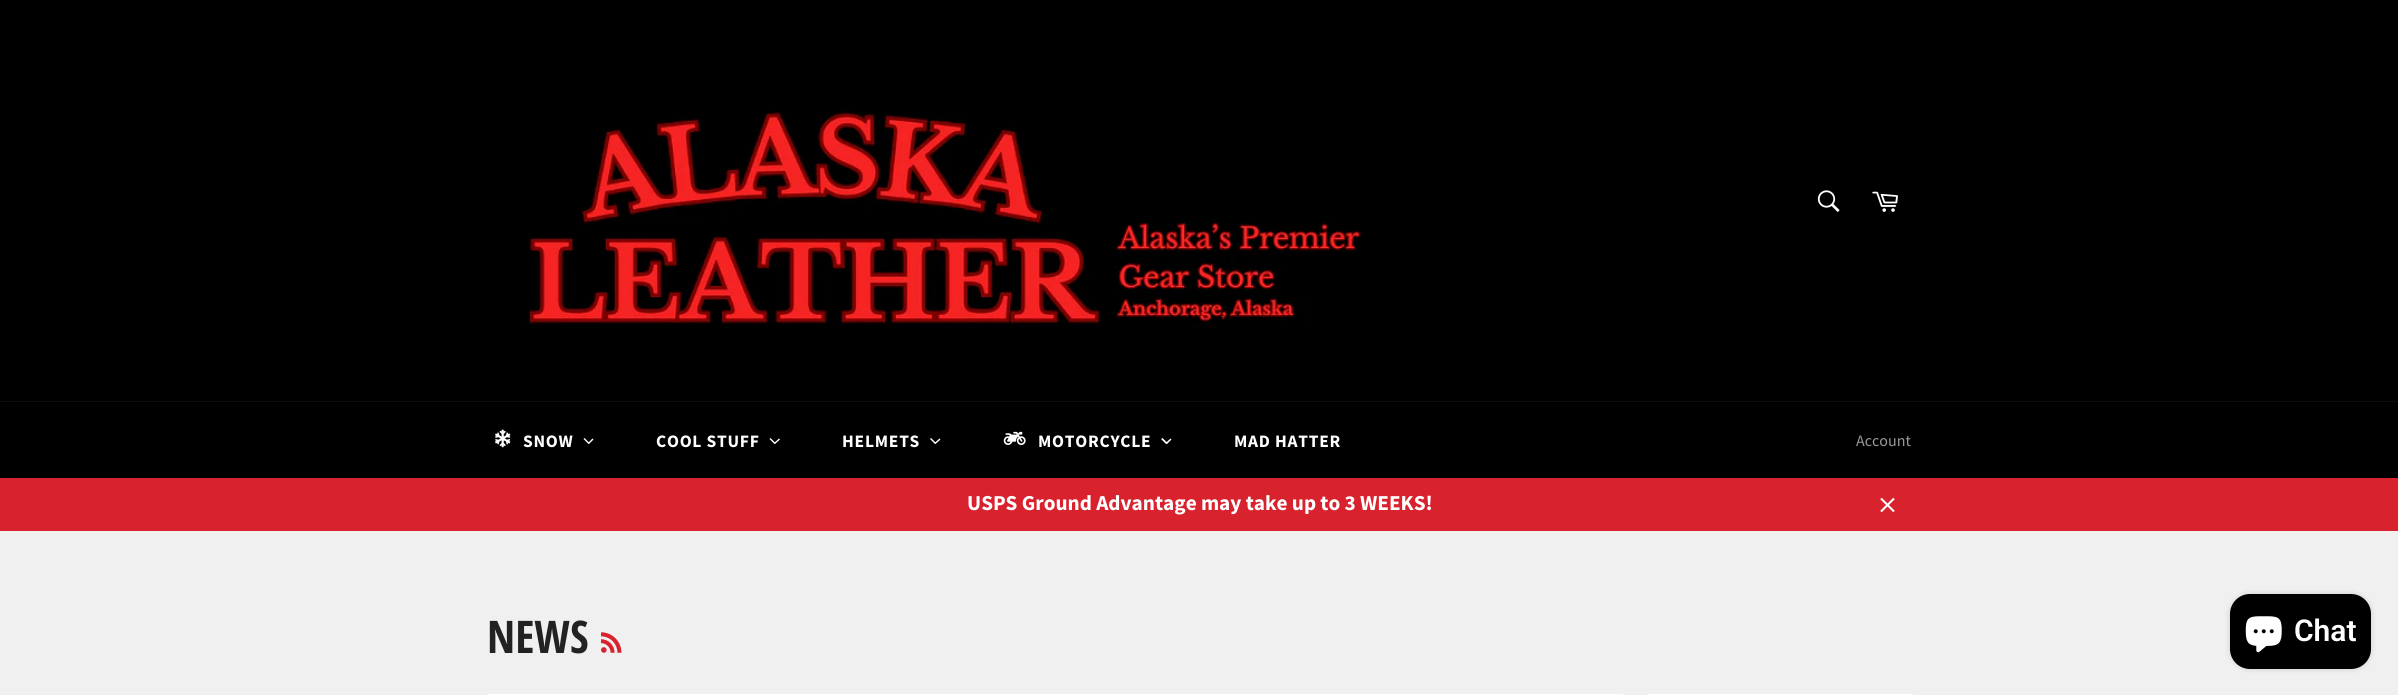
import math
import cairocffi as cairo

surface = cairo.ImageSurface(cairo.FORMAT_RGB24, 2398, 695)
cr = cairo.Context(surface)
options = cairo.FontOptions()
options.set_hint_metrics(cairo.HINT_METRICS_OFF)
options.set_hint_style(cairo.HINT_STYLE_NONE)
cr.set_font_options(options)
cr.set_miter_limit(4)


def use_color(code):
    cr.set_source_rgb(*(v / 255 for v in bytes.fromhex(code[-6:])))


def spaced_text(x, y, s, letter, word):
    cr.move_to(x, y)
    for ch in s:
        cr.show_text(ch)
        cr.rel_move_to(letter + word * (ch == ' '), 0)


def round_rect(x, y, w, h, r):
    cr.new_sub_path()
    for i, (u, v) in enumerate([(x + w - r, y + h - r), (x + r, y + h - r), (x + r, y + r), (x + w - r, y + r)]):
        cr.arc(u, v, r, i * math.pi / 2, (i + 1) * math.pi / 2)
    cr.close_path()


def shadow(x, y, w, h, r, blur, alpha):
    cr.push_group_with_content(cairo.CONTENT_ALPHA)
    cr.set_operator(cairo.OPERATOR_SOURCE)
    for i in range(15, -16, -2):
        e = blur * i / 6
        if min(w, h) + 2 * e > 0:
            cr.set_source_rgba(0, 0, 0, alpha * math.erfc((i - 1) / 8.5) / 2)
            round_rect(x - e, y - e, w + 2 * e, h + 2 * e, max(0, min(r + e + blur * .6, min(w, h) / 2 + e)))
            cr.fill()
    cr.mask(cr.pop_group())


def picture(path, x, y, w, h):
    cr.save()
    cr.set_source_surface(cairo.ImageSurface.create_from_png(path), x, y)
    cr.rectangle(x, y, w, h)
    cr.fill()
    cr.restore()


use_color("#f0f0f0")
cr.paint()
use_color("#000000")
cr.rectangle(0, 0, 2398, 401)
cr.fill()
picture("img1.png", 524, 108, 838, 220)
picture("img2.png", 1817, 190, 23, 22)
picture("img3.png", 1872, 191, 26, 21)
cr.rectangle(0, 402, 2398, 76)
cr.fill()
use_color("#0d0d0d")
cr.rectangle(0, 401, 2398, 1)
cr.fill()
picture("img4.png", 495, 429, 16, 19)
cr.select_font_face("Source Sans Pro", cairo.FONT_SLANT_NORMAL, cairo.FONT_WEIGHT_BOLD)
cr.set_font_size(17.5)
use_color("#ffffff")
spaced_text(523, 447, "SNOW", 0.75, 0)
cr.new_path()
cr.move_to(592.5, 438.5)
cr.line_to(593.5, 439.5)
cr.line_to(589, 444)
cr.line_to(588, 443)
cr.close_path()
cr.fill()
cr.new_path()
cr.move_to(584.5, 438)
cr.line_to(589.5, 443)
cr.line_to(588.5, 444)
cr.line_to(583.5, 439)
cr.close_path()
cr.fill()
spaced_text(656, 447, "COOL STUFF", 0.75, 0)
cr.new_path()
cr.move_to(779, 438.5)
cr.line_to(780, 439.5)
cr.line_to(775, 444)
cr.line_to(774, 443)
cr.close_path()
cr.fill()
cr.new_path()
cr.move_to(770.5, 438)
cr.line_to(775.5, 443)
cr.line_to(774.5, 444)
cr.line_to(769.5, 439)
cr.close_path()
cr.fill()
spaced_text(842, 447, "HELMETS", 0.75, 0)
cr.new_path()
cr.move_to(939.5, 438.5)
cr.line_to(940.5, 439.5)
cr.line_to(935.5, 444)
cr.line_to(934.5, 443)
cr.close_path()
cr.fill()
cr.new_path()
cr.move_to(931, 438)
cr.line_to(936, 443)
cr.line_to(935, 444)
cr.line_to(930, 439)
cr.close_path()
cr.fill()
picture("img5.png", 1003, 431, 23, 14)
spaced_text(1038, 447, "MOTORCYCLE", 0.75, 0)
cr.new_path()
cr.move_to(1170.5, 438.5)
cr.line_to(1171.5, 439.5)
cr.line_to(1167, 444)
cr.line_to(1165.5, 443)
cr.close_path()
cr.fill()
cr.new_path()
cr.move_to(1162.5, 438)
cr.line_to(1167.5, 443)
cr.line_to(1166, 444)
cr.line_to(1161, 439)
cr.close_path()
cr.fill()
spaced_text(1234, 447, "MAD HATTER", 0.75, 0)
cr.select_font_face("Source Sans Pro")
cr.set_font_size(16)
use_color("#999999")
cr.move_to(1856, 446)
cr.show_text("Account")
use_color("#d8232f")
cr.rectangle(0, 478, 2398, 53)
cr.fill()
cr.select_font_face("Source Sans Pro", cairo.FONT_SLANT_NORMAL, cairo.FONT_WEIGHT_BOLD)
cr.set_font_size(21.25)
use_color("#ffffff")
cr.move_to(967, 510)
cr.show_text("USPS Ground Advantage may take up to 3 WEEKS!")
picture("img6.png", 1880, 497, 15, 16)
cr.select_font_face("Open Sans Condensed", cairo.FONT_SLANT_NORMAL, cairo.FONT_WEIGHT_BOLD)
cr.set_font_size(45)
use_color("#222222")
cr.move_to(487, 653)
cr.show_text("NEWS")
picture("img7.png", 601, 632, 21, 21)
use_color("#ffffff")
cr.rectangle(488, 694, 1135, 1)
cr.fill()
cr.rectangle(1648, 694, 265, 1)
cr.fill()
use_color("#000000")
shadow(2230, 594, 141, 75, 20, 3, 0.15)
use_color("#000000")
round_rect(2230, 594, 141, 75, 20)
cr.fill()
picture("img8.png", 2245, 616, 37, 37)
cr.select_font_face("Roboto SemiBold")
cr.set_font_size(30)
use_color("#ffffff")
cr.move_to(2294, 641)
cr.show_text("Chat")
surface.write_to_png("result.png")
